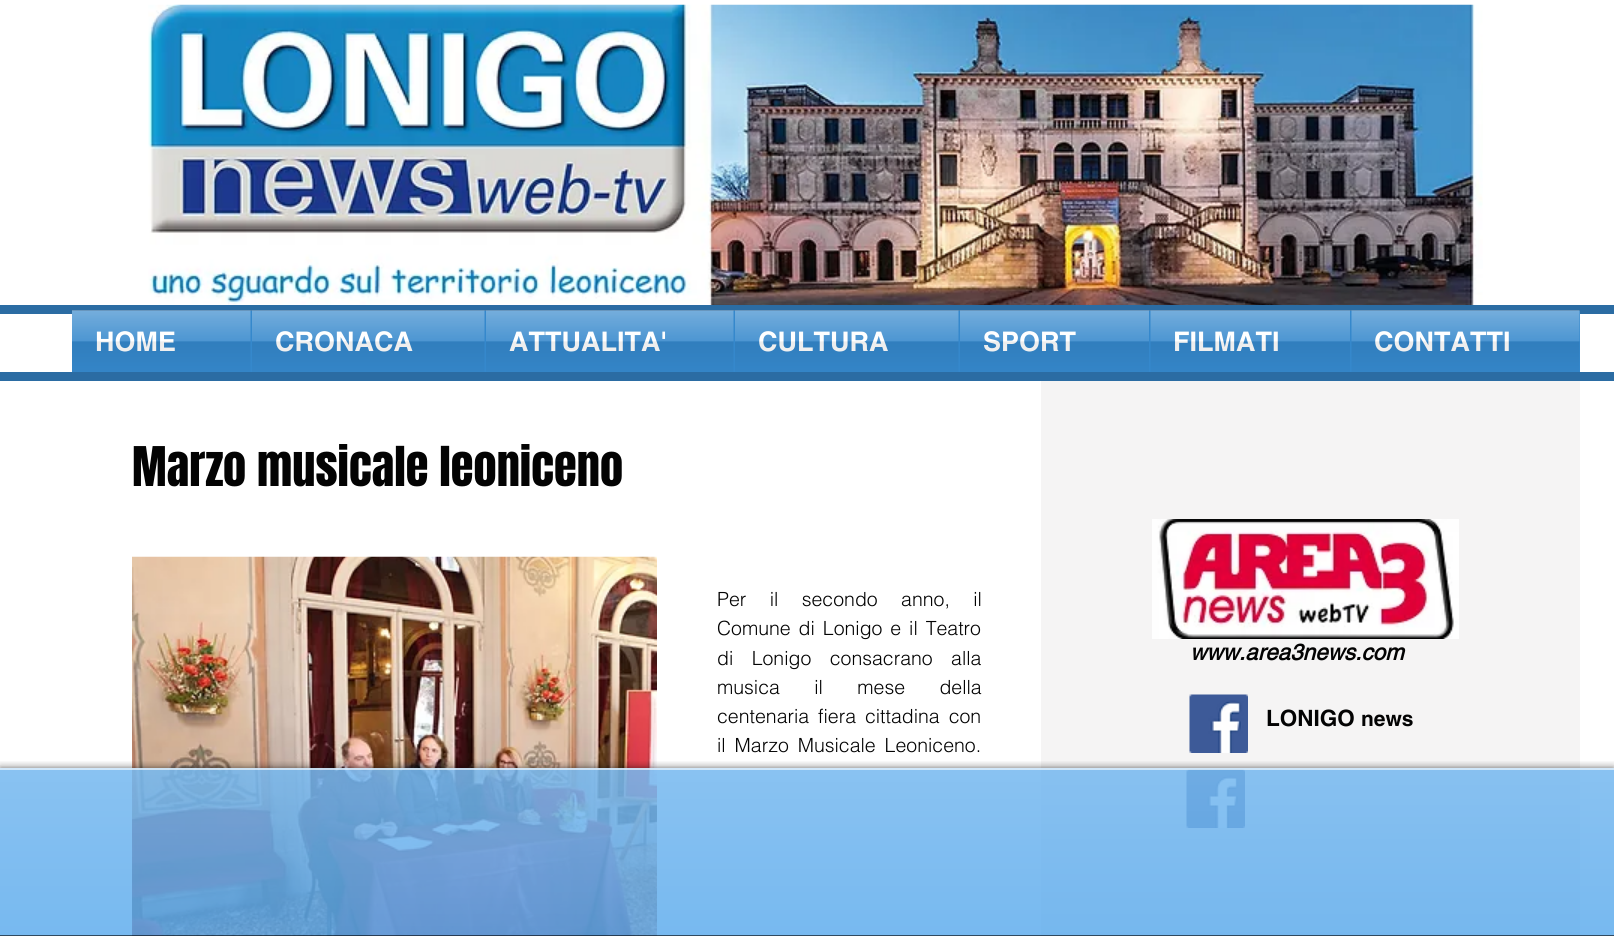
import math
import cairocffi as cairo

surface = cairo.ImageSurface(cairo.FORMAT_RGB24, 1614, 936)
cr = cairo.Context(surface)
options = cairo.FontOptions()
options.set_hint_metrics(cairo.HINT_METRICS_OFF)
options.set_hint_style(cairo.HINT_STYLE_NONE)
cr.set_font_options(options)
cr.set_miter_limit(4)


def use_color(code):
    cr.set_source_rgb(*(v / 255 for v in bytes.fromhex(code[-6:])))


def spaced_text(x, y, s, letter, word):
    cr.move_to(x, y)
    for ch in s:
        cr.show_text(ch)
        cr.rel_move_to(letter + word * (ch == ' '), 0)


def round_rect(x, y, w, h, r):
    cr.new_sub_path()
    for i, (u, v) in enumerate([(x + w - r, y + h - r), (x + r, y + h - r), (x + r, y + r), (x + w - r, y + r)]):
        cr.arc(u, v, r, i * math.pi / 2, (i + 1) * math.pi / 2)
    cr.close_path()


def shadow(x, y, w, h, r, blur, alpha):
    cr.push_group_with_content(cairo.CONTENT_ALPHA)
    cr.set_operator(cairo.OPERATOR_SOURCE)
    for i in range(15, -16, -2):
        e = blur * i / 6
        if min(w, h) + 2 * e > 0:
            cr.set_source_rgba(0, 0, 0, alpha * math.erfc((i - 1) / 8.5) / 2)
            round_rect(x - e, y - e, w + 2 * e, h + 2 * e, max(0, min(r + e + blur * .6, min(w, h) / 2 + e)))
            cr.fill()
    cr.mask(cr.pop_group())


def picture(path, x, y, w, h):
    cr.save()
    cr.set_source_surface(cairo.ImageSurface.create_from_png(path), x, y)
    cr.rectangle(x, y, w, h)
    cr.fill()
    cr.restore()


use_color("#ffffff")
cr.paint()
picture("img1.png", 148, 4, 1335, 301)
use_color("#2b6ca3")
cr.rectangle(0, 305, 1614, 9)
cr.fill()
picture("img2.png", 72, 310, 1508, 1)
use_color("#3588cc")
cr.rectangle(72, 311, 1508, 61)
cr.fill()
cr.select_font_face("helvetica", cairo.FONT_SLANT_NORMAL, cairo.FONT_WEIGHT_BOLD)
cr.set_font_size(27)
use_color("#ffffff")
cr.move_to(95, 351)
cr.show_text("HOME")
picture("img3.png", 72, 310, 179, 62)
cr.move_to(275, 351)
cr.show_text("CRONACA")
picture("img4.png", 252, 310, 233, 62)
cr.move_to(509, 351)
cr.show_text("ATTUALITA'")
picture("img5.png", 486, 310, 248, 62)
cr.move_to(758, 351)
cr.show_text("CULTURA")
picture("img6.png", 735, 310, 224, 62)
cr.move_to(983, 351)
cr.show_text("SPORT")
picture("img7.png", 960, 310, 189, 62)
cr.move_to(1173, 351)
cr.show_text("FILMATI")
picture("img8.png", 1150, 310, 200, 62)
cr.move_to(1374, 351)
cr.show_text("CONTATTI")
picture("img9.png", 1351, 310, 229, 62)
use_color("#2b6ca3")
cr.rectangle(0, 372, 1614, 9)
cr.fill()
cr.select_font_face("Anton")
cr.set_font_size(46.5)
use_color("#030303")
cr.move_to(132, 486)
cr.show_text("Marzo musicale leoniceno")
picture("img10.png", 132, 556, 525, 380)
cr.select_font_face("helvetica Light")
cr.set_font_size(19.5)
spaced_text(717, 606, "Per il secondo anno, il", 0, 18)
spaced_text(717, 635, "Comune di Lonigo e il Teatro", 0, 2.5)
spaced_text(717, 665, "di Lonigo consacrano alla", 0, 13)
spaced_text(717, 694, "musica il mese della", 0, 29)
spaced_text(717, 723, "centenaria fiera cittadina con", 0, 3.5)
spaced_text(717, 752, "il Marzo Musicale Leoniceno.", 0, 3.5)
use_color("#f5f4f4")
cr.rectangle(1041, 381, 539, 555)
cr.fill()
picture("img11.png", 1152, 519, 307, 120)
cr.select_font_face("helvetica", cairo.FONT_SLANT_ITALIC, cairo.FONT_WEIGHT_BOLD)
cr.set_font_size(22.5)
use_color("#030303")
cr.move_to(1190, 660)
cr.show_text("www.area3news.com")
picture("img12.png", 1189, 694, 59, 59)
cr.select_font_face("helvetica", cairo.FONT_SLANT_NORMAL, cairo.FONT_WEIGHT_BOLD)
cr.move_to(1266, 726)
cr.show_text("LONIGO")
cr.set_font_size(21)
cr.move_to(1361, 726)
cr.show_text("news")
picture("img12.png", 1186, 769, 59, 59)
cr.save()
cr.rectangle(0, 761, 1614, 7)
cr.clip()
use_color("#000000")
shadow(0, 768, 1614, 168, 0, 4, 0.6)
cr.restore()
cr.set_source_rgba(0.239, 0.608, 0.914, 0.82)
cr.rectangle(0, 768, 1614, 168)
cr.fill()
picture("img13.png", 0, 768, 1614, 168)
cr.set_source_rgba(0, 0, 0, 0.6)
cr.rectangle(0, 935, 1614, 1)
cr.fill()
cr.set_source_rgba(1, 1, 1, 0.6)
cr.rectangle(0, 768, 1614, 2)
cr.fill()
surface.write_to_png("result.png")
